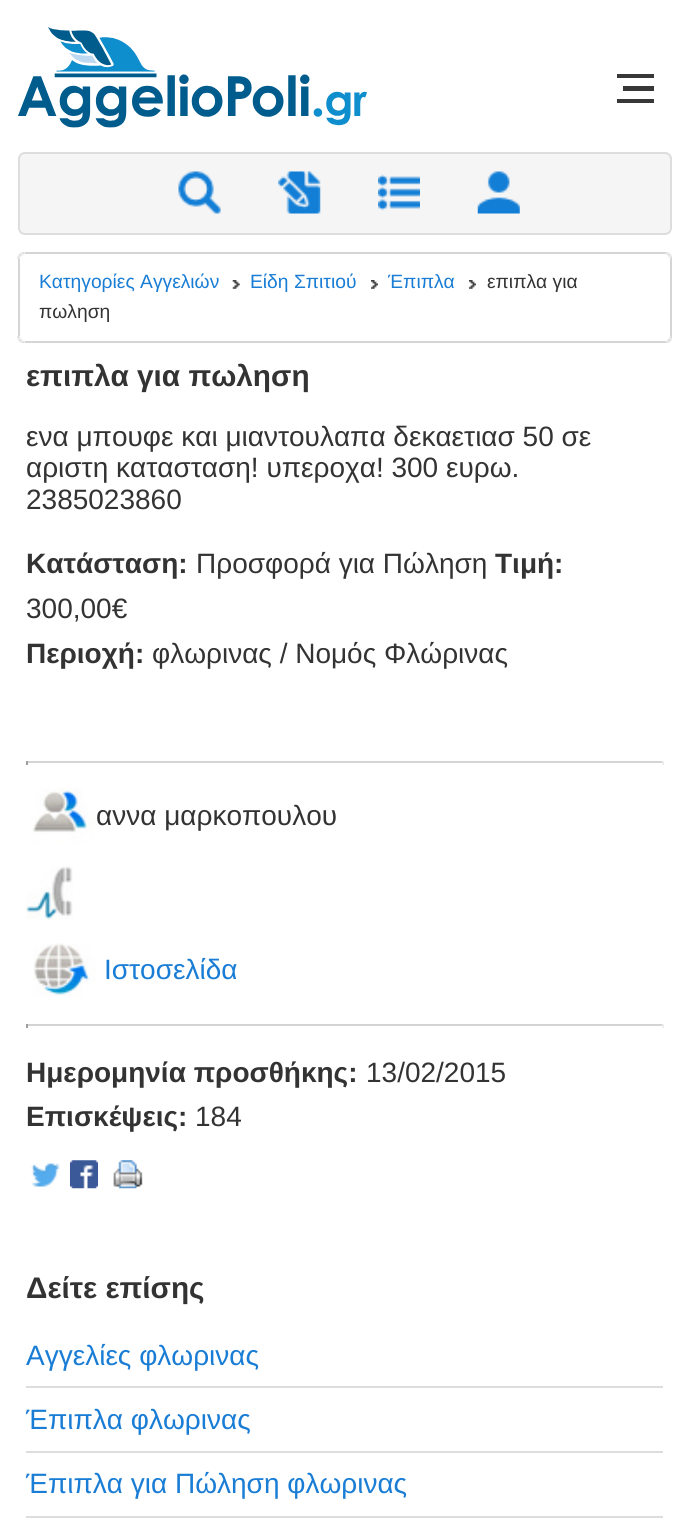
import math
import cairocffi as cairo

surface = cairo.ImageSurface(cairo.FORMAT_RGB24, 688, 1536)
cr = cairo.Context(surface)
options = cairo.FontOptions()
options.set_hint_metrics(cairo.HINT_METRICS_OFF)
options.set_hint_style(cairo.HINT_STYLE_NONE)
cr.set_font_options(options)
cr.set_miter_limit(4)


def use_color(code):
    cr.set_source_rgb(*(v / 255 for v in bytes.fromhex(code[-6:])))


def round_rect(x, y, w, h, r):
    cr.new_sub_path()
    for i, (u, v) in enumerate([(x + w - r, y + h - r), (x + r, y + h - r), (x + r, y + r), (x + w - r, y + r)]):
        cr.arc(u, v, r, i * math.pi / 2, (i + 1) * math.pi / 2)
    cr.close_path()


def picture(path, x, y, w, h):
    cr.save()
    cr.set_source_surface(cairo.ImageSurface.create_from_png(path), x, y)
    cr.rectangle(x, y, w, h)
    cr.fill()
    cr.restore()


use_color("#ffffff")
cr.paint()
picture("img1.png", 18, 27, 349, 101)
use_color("#383838")
cr.rectangle(617, 74, 37, 4)
cr.fill()
cr.rectangle(623, 86, 31, 5)
cr.fill()
cr.rectangle(617, 99, 37, 4)
cr.fill()
use_color("#f5f5f5")
round_rect(19, 153, 652, 81, 6)
cr.fill_preserve()
use_color("#dddddd")
cr.stroke()
picture("img2.png", 178, 171, 43, 43)
picture("img3.png", 278, 171, 43, 43)
picture("img4.png", 378, 174, 42, 37)
picture("img5.png", 477, 171, 43, 43)
picture("img6.png", 17, 252, 8, 7)
picture("img7.png", 665, 252, 7, 7)
use_color("#d5d5d5")
cr.rectangle(25, 252, 640, 2)
cr.fill()
cr.rectangle(670, 259, 2, 77)
cr.fill()
cr.rectangle(18, 259, 2, 77)
cr.fill()
cr.select_font_face("Liberation Sans")
cr.set_font_size(19.25)
use_color("#197dd5")
cr.move_to(39, 288)
cr.show_text("Κατηγορίες Αγγελιών")
picture("img8.png", 232, 280, 8, 9)
cr.move_to(250, 288)
cr.show_text("Είδη Σπιτιού")
picture("img9.png", 371, 280, 7, 9)
cr.move_to(388, 288)
cr.show_text("Έπιπλα")
picture("img9.png", 469, 280, 7, 9)
use_color("#333333")
cr.move_to(487, 288)
cr.show_text("επιπλα για")
cr.move_to(39, 318)
cr.show_text("πωληση")
picture("img10.png", 17, 336, 8, 7)
picture("img11.png", 665, 336, 7, 7)
use_color("#d5d5d5")
cr.rectangle(25, 341, 640, 2)
cr.fill()
cr.select_font_face("Liberation Sans", cairo.FONT_SLANT_NORMAL, cairo.FONT_WEIGHT_BOLD)
cr.set_font_size(29.75)
use_color("#333333")
cr.move_to(26, 386)
cr.show_text("επιπλα για πωληση")
cr.select_font_face("Liberation Sans")
cr.set_font_size(28)
cr.move_to(26, 446)
cr.show_text("ενα μπουφε και μιαντουλαπα δεκαετιασ 50 σε")
cr.move_to(26, 477)
cr.show_text("αριστη κατασταση! υπεροχα! 300 ευρω.")
cr.move_to(26, 509)
cr.show_text("2385023860")
cr.select_font_face("Liberation Sans", cairo.FONT_SLANT_NORMAL, cairo.FONT_WEIGHT_BOLD)
cr.move_to(26, 573)
cr.show_text("Κατάσταση:")
cr.select_font_face("Liberation Sans")
cr.move_to(196, 573)
cr.show_text("Προσφορά για Πώληση")
cr.select_font_face("Liberation Sans", cairo.FONT_SLANT_NORMAL, cairo.FONT_WEIGHT_BOLD)
cr.move_to(495, 573)
cr.show_text("Τιμή:")
cr.select_font_face("Liberation Sans")
cr.move_to(26, 618)
cr.show_text("300,00€")
cr.select_font_face("Liberation Sans", cairo.FONT_SLANT_NORMAL, cairo.FONT_WEIGHT_BOLD)
cr.move_to(26, 663)
cr.show_text("Περιοχή:")
cr.select_font_face("Liberation Sans")
cr.move_to(152, 663)
cr.show_text("φλωρινας / Νομός Φλώρινας")
use_color("#d4d4d4")
cr.rectangle(26, 761, 637, 2)
cr.fill()
use_color("#eeeeee")
cr.rectangle(662, 761, 2, 4)
cr.fill()
use_color("#9f9f9f")
cr.rectangle(26, 761, 2, 4)
cr.fill()
picture("img12.png", 30, 788, 66, 55)
use_color("#333333")
cr.move_to(96, 825)
cr.show_text("αννα μαρκοπουλου")
picture("img13.png", 26, 866, 47, 54)
picture("img14.png", 33, 943, 63, 54)
use_color("#197dd5")
cr.move_to(104, 979)
cr.show_text("Ιστοσελίδα")
use_color("#d4d4d4")
cr.rectangle(26, 1024, 637, 2)
cr.fill()
use_color("#eeeeee")
cr.rectangle(662, 1024, 2, 4)
cr.fill()
use_color("#9f9f9f")
cr.rectangle(26, 1024, 2, 4)
cr.fill()
cr.select_font_face("Liberation Sans", cairo.FONT_SLANT_NORMAL, cairo.FONT_WEIGHT_BOLD)
use_color("#333333")
cr.move_to(26, 1082)
cr.show_text("Ημερομηνία προσθήκης:")
cr.select_font_face("Liberation Sans")
cr.move_to(366, 1082)
cr.show_text("13/02/2015")
cr.select_font_face("Liberation Sans", cairo.FONT_SLANT_NORMAL, cairo.FONT_WEIGHT_BOLD)
cr.move_to(26, 1126)
cr.show_text("Επισκέψεις:")
cr.select_font_face("Liberation Sans")
cr.move_to(195, 1126)
cr.show_text("184")
picture("img15.png", 31, 1163, 29, 24)
picture("img16.png", 70, 1160, 28, 29)
picture("img17.png", 113, 1160, 30, 29)
cr.select_font_face("Liberation Sans", cairo.FONT_SLANT_NORMAL, cairo.FONT_WEIGHT_BOLD)
cr.set_font_size(29.75)
cr.move_to(26, 1298)
cr.show_text("Δείτε επίσης")
use_color("#dddddd")
cr.rectangle(26, 1386, 637, 2)
cr.fill()
cr.select_font_face("Liberation Sans")
cr.set_font_size(28)
use_color("#197dd5")
cr.move_to(26, 1365)
cr.show_text("Αγγελίες φλωρινας")
use_color("#dddddd")
cr.rectangle(26, 1451, 637, 2)
cr.fill()
use_color("#197dd5")
cr.move_to(26, 1429)
cr.show_text("Έπιπλα φλωρινας")
use_color("#dddddd")
cr.rectangle(26, 1516, 637, 2)
cr.fill()
use_color("#197dd5")
cr.move_to(26, 1493)
cr.show_text("Έπιπλα για Πώληση φλωρινας")
surface.write_to_png("result.png")
